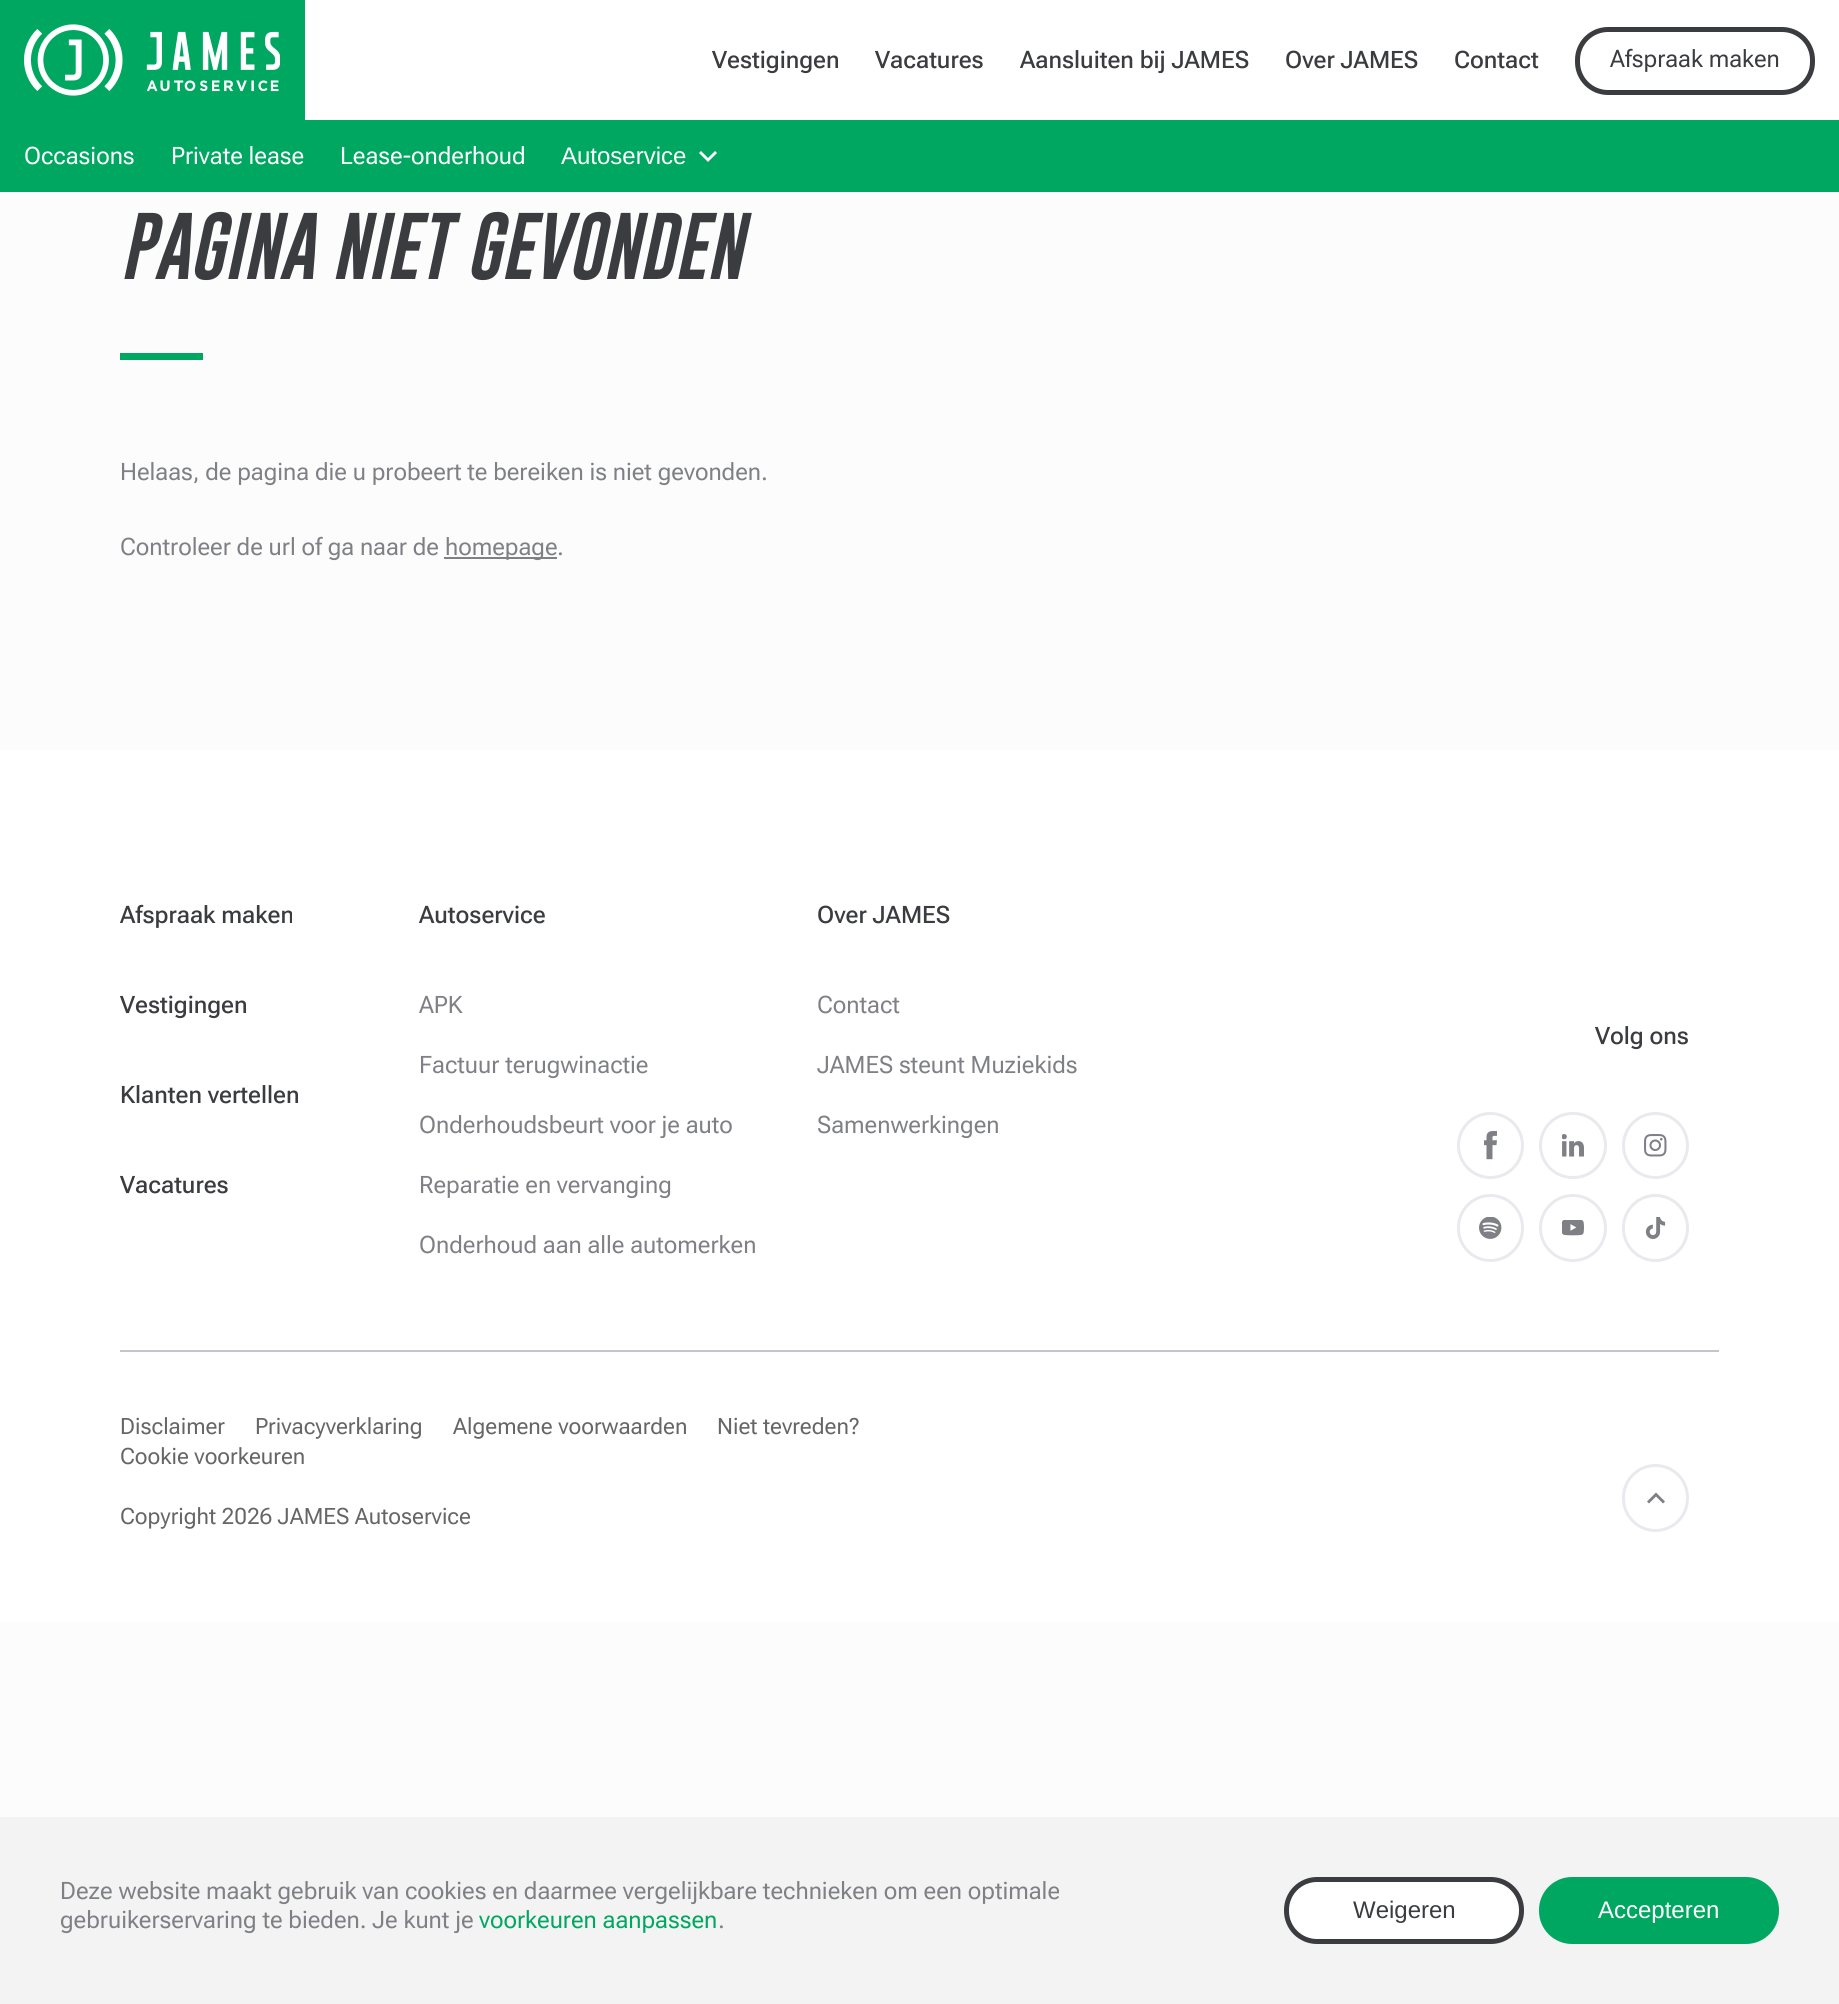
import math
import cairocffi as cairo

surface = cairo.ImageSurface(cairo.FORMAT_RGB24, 1839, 2004)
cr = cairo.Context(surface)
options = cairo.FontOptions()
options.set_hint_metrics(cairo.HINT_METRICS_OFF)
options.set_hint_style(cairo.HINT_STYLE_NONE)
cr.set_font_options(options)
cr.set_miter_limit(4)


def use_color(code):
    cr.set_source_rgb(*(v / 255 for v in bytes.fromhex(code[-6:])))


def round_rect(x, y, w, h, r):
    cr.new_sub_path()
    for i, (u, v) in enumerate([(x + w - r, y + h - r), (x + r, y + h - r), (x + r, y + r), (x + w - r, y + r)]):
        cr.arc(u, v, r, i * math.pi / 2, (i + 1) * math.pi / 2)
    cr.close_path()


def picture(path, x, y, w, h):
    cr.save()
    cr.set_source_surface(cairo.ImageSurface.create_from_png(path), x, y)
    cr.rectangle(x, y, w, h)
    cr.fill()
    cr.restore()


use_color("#fcfcfc")
cr.paint()
use_color("#ffffff")
cr.rectangle(305, 0, 1534, 120)
cr.fill()
use_color("#00a761")
cr.rectangle(0, 0, 305, 120)
cr.fill()
picture("img1.png", 24, 24, 256, 72)
cr.select_font_face("Roboto Flex Medium")
cr.set_font_size(24)
use_color("#3b3c40")
cr.move_to(712, 68)
cr.show_text("Vestigingen")
cr.move_to(875, 68)
cr.show_text("Vacatures")
cr.move_to(1020, 68)
cr.show_text("Aansluiten bij JAMES")
cr.move_to(1285, 68)
cr.show_text("Over JAMES")
cr.move_to(1454, 68)
cr.show_text("Contact")
round_rect(1577.5, 29.5, 235, 63, 30.5)
cr.set_line_width(5)
cr.stroke()
cr.select_font_face("Roboto Flex")
cr.move_to(1610, 67)
cr.show_text("Afspraak maken")
use_color("#00a761")
cr.rectangle(0, 120, 1839, 72)
cr.fill()
use_color("#ffffff")
cr.move_to(24, 164)
cr.show_text("Occasions")
cr.move_to(171, 164)
cr.show_text("Private lease")
cr.move_to(340, 164)
cr.show_text("Lease-onderhoud")
cr.select_font_face("Liberation Sans")
cr.move_to(561, 164)
cr.show_text("Autoservice")
cr.set_fill_rule(cairo.FILL_RULE_EVEN_ODD)
cr.new_path()
cr.move_to(708, 162)
cr.line_to(699, 153)
cr.line_to(701, 151)
cr.line_to(708, 158)
cr.line_to(715, 151)
cr.line_to(717, 153)
cr.close_path()
cr.fill()
cr.select_font_face("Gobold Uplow", cairo.FONT_SLANT_ITALIC, cairo.FONT_WEIGHT_BOLD)
cr.set_font_size(69)
use_color("#3b3c40")
cr.move_to(120, 279)
cr.show_text("PAGINA NIET GEVONDEN")
use_color("#00a761")
cr.rectangle(120, 353, 83, 7)
cr.fill()
cr.select_font_face("Roboto Flex")
cr.set_font_size(24)
use_color("#7f8085")
cr.move_to(120, 480)
cr.show_text("Helaas, de pagina die u probeert te bereiken is niet gevonden.")
cr.move_to(120, 555)
cr.show_text("Controleer de url of ga naar de")
cr.rectangle(444, 557, 113, 2)
cr.fill()
cr.move_to(445, 555)
cr.show_text("homepage")
cr.move_to(557, 555)
cr.show_text(".")
use_color("#ffffff")
cr.rectangle(0, 750, 1839, 872)
cr.fill()
cr.select_font_face("Roboto Flex Medium")
use_color("#3b3c40")
cr.move_to(120, 923)
cr.show_text("Afspraak maken")
cr.move_to(120, 1013)
cr.show_text("Vestigingen")
cr.move_to(120, 1103)
cr.show_text("Klanten vertellen")
cr.move_to(120, 1193)
cr.show_text("Vacatures")
cr.move_to(419, 923)
cr.show_text("Autoservice")
cr.select_font_face("Roboto Flex")
use_color("#7f8085")
cr.move_to(419, 1013)
cr.show_text("APK")
cr.move_to(419, 1073)
cr.show_text("Factuur terugwinactie")
cr.move_to(419, 1133)
cr.show_text("Onderhoudsbeurt voor je auto")
cr.move_to(419, 1193)
cr.show_text("Reparatie en vervanging")
cr.move_to(419, 1253)
cr.show_text("Onderhoud aan alle automerken")
cr.select_font_face("Roboto Flex Medium")
use_color("#3b3c40")
cr.move_to(817, 923)
cr.show_text("Over JAMES")
cr.select_font_face("Roboto Flex")
use_color("#7f8085")
cr.move_to(817, 1013)
cr.show_text("Contact")
cr.move_to(817, 1073)
cr.show_text("JAMES steunt Muziekids")
cr.move_to(817, 1133)
cr.show_text("Samenwerkingen")
cr.select_font_face("Roboto Flex Medium")
use_color("#3b3c40")
cr.move_to(1595, 1044)
cr.show_text("Volg ons")
picture("img2.png", 1484, 1131, 13, 29)
cr.arc(1490.5, 1145.5, 32, 0, 2 * math.pi)
use_color("#e9eaee")
cr.set_line_width(3)
cr.stroke()
picture("img3.png", 1562, 1134, 22, 23)
round_rect(1540.5, 1113.5, 65, 64, 32)
cr.stroke()
picture("img4.png", 1644, 1134, 23, 23)
cr.arc(1655.5, 1145.5, 32, 0, 2 * math.pi)
cr.stroke()
picture("img5.png", 1479, 1217, 23, 22)
round_rect(1458.5, 1195.5, 64, 65, 32)
cr.stroke()
picture("img6.png", 1562, 1220, 22, 16)
cr.arc(1573, 1228, 32.5, 0, 2 * math.pi)
cr.stroke()
picture("img7.png", 1645, 1217, 21, 22)
round_rect(1623.5, 1195.5, 64, 65, 32)
cr.stroke()
use_color("#c3c5ce")
cr.rectangle(120, 1350, 1599, 2)
cr.fill()
cr.select_font_face("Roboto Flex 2")
cr.set_font_size(22.5)
use_color("#666666")
cr.move_to(120, 1434)
cr.show_text("Disclaimer")
cr.move_to(255, 1434)
cr.show_text("Privacyverklaring")
cr.move_to(453, 1434)
cr.show_text("Algemene voorwaarden")
cr.move_to(717, 1434)
cr.show_text("Niet tevreden?")
cr.move_to(120, 1464)
cr.show_text("Cookie voorkeuren")
cr.move_to(120, 1524)
cr.show_text("Copyright 2026 JAMES Autoservice")
use_color("#7f8085")
cr.new_path()
cr.move_to(1656, 1492.5)
cr.line_to(1647, 1501.5)
cr.line_to(1649, 1503.5)
cr.line_to(1656, 1496.5)
cr.line_to(1663, 1503.5)
cr.line_to(1665, 1501.5)
cr.close_path()
cr.fill()
round_rect(1623.5, 1465.5, 64, 65, 32)
use_color("#e9eaee")
cr.stroke()
use_color("#f3f3f3")
cr.rectangle(0, 1817, 1839, 187)
cr.fill()
cr.select_font_face("Roboto Flex")
cr.set_font_size(24)
use_color("#7f8085")
cr.move_to(60, 1899)
cr.show_text("Deze website maakt gebruik van cookies en daarmee vergelijkbare technieken om een optimale")
cr.move_to(60, 1928)
cr.show_text("gebruikerservaring te bieden. Je kunt je")
use_color("#00a761")
cr.move_to(479, 1928)
cr.show_text("voorkeuren aanpassen")
use_color("#7f8085")
cr.move_to(718, 1928)
cr.show_text(".")
use_color("#ffffff")
round_rect(1286.5, 1879.5, 235, 62, 30.5)
cr.fill_preserve()
use_color("#3b3c40")
cr.set_line_width(5)
cr.stroke()
cr.select_font_face("Liberation Sans")
cr.move_to(1353, 1918)
cr.show_text("Weigeren")
use_color("#00a761")
round_rect(1541.5, 1879.5, 235, 62, 30.5)
cr.fill_preserve()
cr.stroke()
use_color("#ffffff")
cr.move_to(1598, 1918)
cr.show_text("Accepteren")
surface.write_to_png("result.png")
